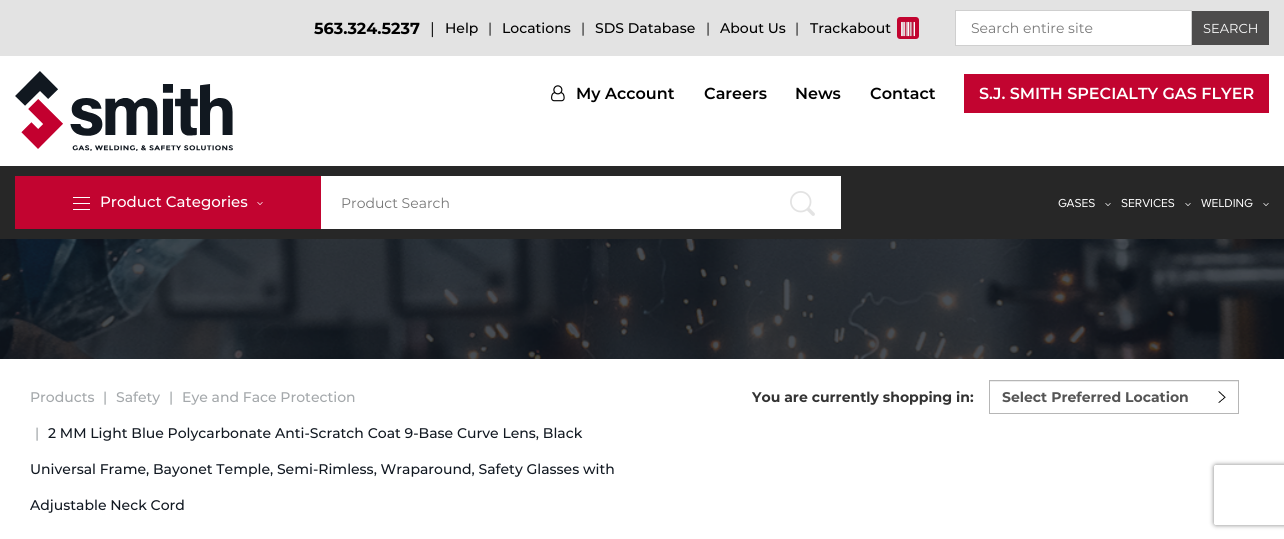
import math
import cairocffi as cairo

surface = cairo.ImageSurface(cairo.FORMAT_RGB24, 1284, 539)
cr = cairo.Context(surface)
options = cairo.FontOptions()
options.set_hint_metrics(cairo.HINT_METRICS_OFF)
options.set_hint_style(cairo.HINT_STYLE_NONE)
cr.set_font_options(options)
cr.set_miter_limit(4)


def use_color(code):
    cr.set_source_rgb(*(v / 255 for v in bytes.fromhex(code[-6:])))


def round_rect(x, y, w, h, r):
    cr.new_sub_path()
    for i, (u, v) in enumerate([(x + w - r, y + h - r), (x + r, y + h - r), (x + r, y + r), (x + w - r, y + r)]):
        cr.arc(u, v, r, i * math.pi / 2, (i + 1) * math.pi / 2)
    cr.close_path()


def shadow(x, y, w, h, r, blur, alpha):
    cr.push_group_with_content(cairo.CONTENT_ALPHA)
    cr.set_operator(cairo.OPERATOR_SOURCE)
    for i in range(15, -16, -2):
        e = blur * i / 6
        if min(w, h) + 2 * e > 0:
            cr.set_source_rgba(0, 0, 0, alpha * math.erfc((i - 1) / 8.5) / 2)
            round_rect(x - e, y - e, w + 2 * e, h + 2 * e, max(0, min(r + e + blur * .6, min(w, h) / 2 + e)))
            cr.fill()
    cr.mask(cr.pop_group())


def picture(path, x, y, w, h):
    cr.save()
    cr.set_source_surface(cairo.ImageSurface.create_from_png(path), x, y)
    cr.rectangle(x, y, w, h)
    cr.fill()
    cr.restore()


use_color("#ffffff")
cr.paint()
use_color("#e3e3e3")
cr.rectangle(0, 0, 1284, 56)
cr.fill()
cr.select_font_face("Montserrat", cairo.FONT_SLANT_NORMAL, cairo.FONT_WEIGHT_BOLD)
cr.set_font_size(16)
use_color("#000000")
cr.move_to(314, 34)
cr.show_text("563.324.5237")
cr.select_font_face("Montserrat")
cr.move_to(430, 34)
cr.show_text("|")
cr.select_font_face("Montserrat Medium")
cr.set_font_size(14)
cr.move_to(445, 33)
cr.show_text("Help")
cr.select_font_face("Montserrat")
cr.move_to(488, 33)
cr.show_text("|")
cr.select_font_face("Montserrat Medium")
cr.move_to(502, 33)
cr.show_text("Locations")
cr.select_font_face("Montserrat")
cr.move_to(581, 33)
cr.show_text("|")
cr.select_font_face("Montserrat Medium")
cr.move_to(595, 33)
cr.show_text("SDS Database")
cr.select_font_face("Montserrat")
cr.move_to(706, 33)
cr.show_text("|")
cr.select_font_face("Montserrat Medium")
cr.move_to(720, 33)
cr.show_text("About Us")
cr.select_font_face("Montserrat")
cr.move_to(795, 33)
cr.show_text("|")
cr.select_font_face("Montserrat Medium")
cr.move_to(810, 33)
cr.show_text("Trackabout")
use_color("#c20430")
round_rect(897, 17, 22, 22, 3)
cr.fill()
picture("img1.png", 901, 21, 14, 16)
use_color("#ffffff")
cr.rectangle(955.5, 10.5, 236, 35)
cr.fill_preserve()
use_color("#cfcfcf")
cr.set_line_width(1)
cr.stroke()
cr.select_font_face("Montserrat")
use_color("#777777")
cr.move_to(971, 33)
cr.show_text("Search entire site")
use_color("#4d4c4c")
cr.rectangle(1192, 11, 77, 34)
cr.fill()
cr.set_font_size(13)
use_color("#ffffff")
cr.move_to(1203, 33)
cr.show_text("SEARCH")
picture("img2.png", 15, 71, 218, 80)
picture("img3.png", 551, 85, 14, 17)
cr.select_font_face("Montserrat SemiBold")
cr.set_font_size(16)
use_color("#000000")
cr.move_to(576, 99)
cr.show_text("My Account")
cr.move_to(704, 99)
cr.show_text("Careers")
cr.move_to(795, 99)
cr.show_text("News")
cr.move_to(870, 99)
cr.show_text("Contact")
use_color("#c20430")
cr.rectangle(964, 74, 305, 39)
cr.fill()
use_color("#ffffff")
cr.move_to(979, 99)
cr.show_text("S.J. SMITH SPECIALTY GAS FLYER")
use_color("#272727")
cr.rectangle(0, 166, 1284, 73)
cr.fill()
use_color("#c20430")
cr.rectangle(15, 176, 306, 53)
cr.fill()
use_color("#ffffff")
cr.rectangle(73, 197, 17, 1)
cr.fill()
cr.rectangle(73, 203, 17, 1)
cr.fill()
cr.rectangle(73, 209, 17, 1)
cr.fill()
cr.select_font_face("Montserrat Medium")
cr.set_font_size(15)
cr.move_to(100, 207)
cr.show_text("Product Categories")
picture("img4.png", 257, 202, 6, 3)
cr.rectangle(321, 176, 520, 53)
cr.fill()
cr.select_font_face("Montserrat")
cr.set_font_size(14)
use_color("#777777")
cr.move_to(341, 208)
cr.show_text("Product Search")
picture("img5.png", 790, 191, 25, 25)
cr.select_font_face("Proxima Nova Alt")
cr.set_font_size(12)
use_color("#ffffff")
cr.move_to(1058, 207)
cr.show_text("GASES")
picture("img6.png", 1105, 203, 6, 3)
cr.move_to(1121, 207)
cr.show_text("SERVICES")
picture("img6.png", 1185, 203, 6, 3)
cr.move_to(1201, 207)
cr.show_text("WELDING")
picture("img6.png", 1263, 203, 6, 3)
picture("img7.png", 0, 239, 1284, 120)
cr.select_font_face("Montserrat Medium")
cr.set_font_size(14)
use_color("#a4a8ab")
cr.move_to(30, 402)
cr.show_text("Products")
cr.move_to(103, 402)
cr.show_text("|")
cr.move_to(116, 402)
cr.show_text("Safety")
cr.move_to(169, 402)
cr.show_text("|")
cr.move_to(182, 402)
cr.show_text("Eye and Face Protection")
cr.move_to(35, 438)
cr.show_text("|")
use_color("#111821")
cr.move_to(48, 438)
cr.show_text("2 MM Light Blue Polycarbonate Anti-Scratch Coat 9-Base Curve Lens, Black")
cr.move_to(30, 474)
cr.show_text("Universal Frame, Bayonet Temple, Semi-Rimless, Wraparound, Safety Glasses with")
cr.move_to(30, 510)
cr.show_text("Adjustable Neck Cord")
cr.select_font_face("Montserrat", cairo.FONT_SLANT_NORMAL, cairo.FONT_WEIGHT_BOLD)
use_color("#333333")
cr.move_to(752, 402)
cr.show_text("You are currently shopping in:")
picture("img8.png", 1218, 391, 8, 12)
use_color("#ececec")
cr.rectangle(990, 381, 248, 1)
cr.fill()
cr.rectangle(989.5, 380.5, 249, 33)
use_color("#b6b6b6")
cr.stroke()
use_color("#555555")
cr.move_to(1002, 402)
cr.show_text("Select Preferred Location")
cr.save()
cr.set_fill_rule(cairo.FILL_RULE_EVEN_ODD)
cr.new_path()
cr.move_to(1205, 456)
cr.line_to(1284, 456)
cr.line_to(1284, 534)
cr.line_to(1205, 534)
cr.close_path()
cr.move_to(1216, 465)
cr.line_to(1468, 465)
cr.curve_to(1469, 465, 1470, 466, 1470, 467)
cr.line_to(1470, 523)
cr.curve_to(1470, 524, 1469, 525, 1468, 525)
cr.line_to(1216, 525)
cr.curve_to(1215, 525, 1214, 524, 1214, 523)
cr.line_to(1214, 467)
cr.curve_to(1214, 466, 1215, 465, 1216, 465)
cr.close_path()
cr.clip()
use_color("#808080")
shadow(1214, 465, 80, 60, 2, 2.5, 1)
cr.restore()
surface.write_to_png("result.png")
